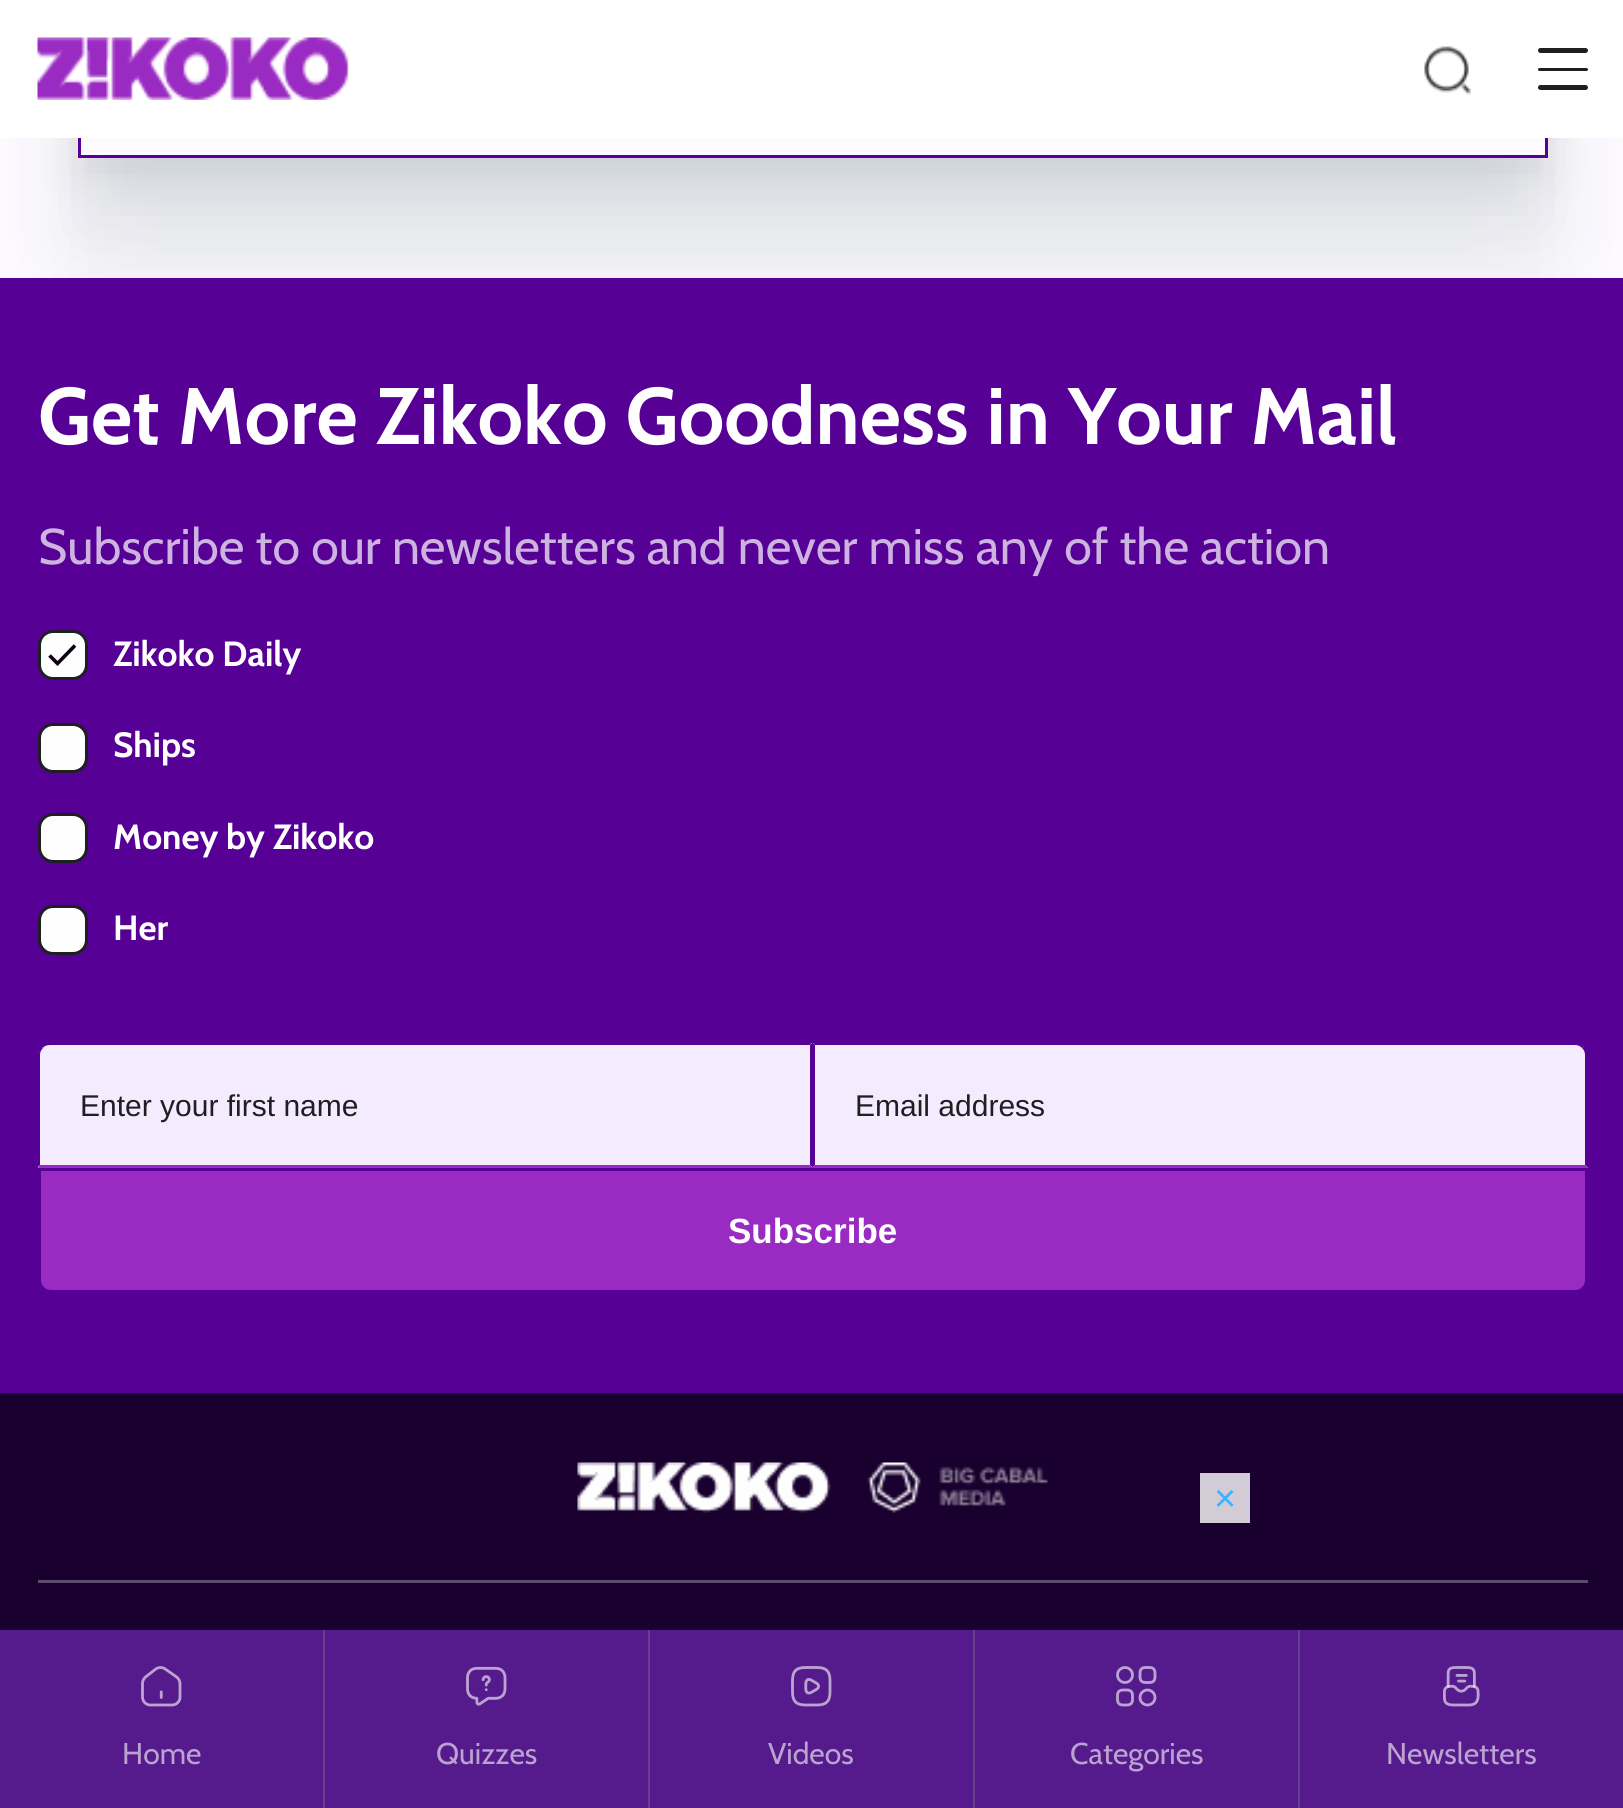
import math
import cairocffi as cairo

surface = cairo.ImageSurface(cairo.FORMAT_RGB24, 1623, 1808)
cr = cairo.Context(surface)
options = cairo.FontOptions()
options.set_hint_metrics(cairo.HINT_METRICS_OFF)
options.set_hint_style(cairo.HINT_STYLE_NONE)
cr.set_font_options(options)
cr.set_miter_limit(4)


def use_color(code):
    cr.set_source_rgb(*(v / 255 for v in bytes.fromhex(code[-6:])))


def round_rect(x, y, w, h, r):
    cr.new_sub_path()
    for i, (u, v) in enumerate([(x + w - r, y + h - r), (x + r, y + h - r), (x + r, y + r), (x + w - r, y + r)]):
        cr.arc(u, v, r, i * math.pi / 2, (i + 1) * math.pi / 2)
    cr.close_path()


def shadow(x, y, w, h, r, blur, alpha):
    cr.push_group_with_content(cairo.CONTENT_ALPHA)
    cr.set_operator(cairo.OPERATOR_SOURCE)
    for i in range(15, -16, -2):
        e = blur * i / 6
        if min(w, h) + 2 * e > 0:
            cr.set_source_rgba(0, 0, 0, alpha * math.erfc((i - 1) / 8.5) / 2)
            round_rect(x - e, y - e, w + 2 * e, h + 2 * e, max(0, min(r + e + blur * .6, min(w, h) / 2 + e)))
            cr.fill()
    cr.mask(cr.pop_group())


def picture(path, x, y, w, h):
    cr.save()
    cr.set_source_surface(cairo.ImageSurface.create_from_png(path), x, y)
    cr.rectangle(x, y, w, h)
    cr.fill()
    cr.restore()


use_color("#fdfbff")
cr.paint()
cr.save()
cr.set_fill_rule(cairo.FILL_RULE_EVEN_ODD)
cr.new_path()
cr.move_to(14, 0)
cr.line_to(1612, 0)
cr.line_to(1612, 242)
cr.line_to(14, 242)
cr.close_path()
cr.move_to(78, -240)
cr.line_to(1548, -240)
cr.line_to(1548, 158)
cr.line_to(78, 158)
cr.close_path()
cr.clip()
use_color("#1c3740")
shadow(78, -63, 1470, 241, 0, 21, 0.1)
cr.restore()
cr.save()
cr.set_fill_rule(cairo.FILL_RULE_EVEN_ODD)
cr.new_path()
cr.move_to(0, 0)
cr.line_to(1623, 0)
cr.line_to(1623, 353)
cr.line_to(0, 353)
cr.close_path()
cr.move_to(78, -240)
cr.line_to(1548, -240)
cr.line_to(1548, 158)
cr.line_to(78, 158)
cr.close_path()
cr.clip()
use_color("#1c3740")
shadow(78, -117, 1470, 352, 0, 39, 0.09)
cr.restore()
cr.save()
cr.set_fill_rule(cairo.FILL_RULE_EVEN_ODD)
cr.new_path()
cr.move_to(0, 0)
cr.line_to(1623, 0)
cr.line_to(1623, 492)
cr.line_to(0, 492)
cr.close_path()
cr.move_to(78, -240)
cr.line_to(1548, -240)
cr.line_to(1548, 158)
cr.line_to(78, 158)
cr.close_path()
cr.clip()
use_color("#1c3740")
shadow(78, -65, 1470, 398, 0, 52.5, 0.05)
cr.restore()
cr.rectangle(79.5, -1.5, 1467, 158)
use_color("#570095")
cr.set_line_width(3)
cr.stroke()
cr.rectangle(0, 278, 1623, 1115)
cr.fill()
cr.select_font_face("Cabin", cairo.FONT_SLANT_NORMAL, cairo.FONT_WEIGHT_BOLD)
cr.set_font_size(80)
use_color("#ffffff")
cr.move_to(38, 444)
cr.show_text("Get More Zikoko Goodness in Your Mail")
cr.select_font_face("Cabin")
cr.set_font_size(50)
use_color("#cdb3df")
cr.move_to(38, 564)
cr.show_text("Subscribe to our newsletters and never miss any of the action")
use_color("#fefefe")
round_rect(39.5, 631.5, 47, 47, 13.5)
cr.fill_preserve()
use_color("#1d1f21")
cr.stroke()
cr.new_path()
cr.move_to(49.5, 655.5)
cr.line_to(57.5, 663.5)
cr.line_to(75, 645.5)
use_color("#0b0014")
cr.set_line_width(3.6)
cr.stroke()
cr.select_font_face("Cabin", cairo.FONT_SLANT_NORMAL, cairo.FONT_WEIGHT_BOLD)
cr.set_font_size(35)
use_color("#ffffff")
cr.move_to(113, 666)
cr.show_text("Zikoko Daily")
use_color("#fefefe")
round_rect(39.5, 724.5, 47, 47, 13.5)
cr.fill_preserve()
use_color("#1d1f21")
cr.set_line_width(3)
cr.stroke()
use_color("#ffffff")
cr.move_to(113, 757)
cr.show_text("Ships")
use_color("#fefefe")
round_rect(39.5, 814.5, 47, 47, 13.5)
cr.fill_preserve()
use_color("#1d1f21")
cr.stroke()
use_color("#ffffff")
cr.move_to(113, 849)
cr.show_text("Money by Zikoko")
use_color("#fefefe")
round_rect(39.5, 906.5, 47, 47, 13.5)
cr.fill_preserve()
use_color("#1d1f21")
cr.stroke()
use_color("#ffffff")
cr.move_to(113, 940)
cr.show_text("Her")
use_color("#f5ebff")
cr.new_path()
cr.move_to(51, 1043)
cr.line_to(813, 1043)
cr.line_to(813, 1168)
cr.line_to(38, 1168)
cr.line_to(38, 1056)
cr.curve_to(38, 1049, 44, 1043, 51, 1043)
cr.close_path()
cr.fill()
use_color("#570095")
cr.new_path()
cr.move_to(50, 1045)
cr.curve_to(47, 1045, 44, 1046, 43, 1048)
cr.line_to(41, 1046)
cr.curve_to(43, 1044, 44, 1043, 47, 1042)
cr.line_to(812, 1042)
cr.line_to(810, 1045)
cr.close_path()
cr.fill()
cr.new_path()
cr.move_to(812, 1043)
cr.line_to(812, 1167)
cr.line_to(810, 1165)
cr.line_to(810, 1045)
cr.close_path()
cr.fill()
use_color("#9a2bc2")
cr.new_path()
cr.move_to(38, 1168)
cr.line_to(40, 1165)
cr.line_to(810, 1165)
cr.line_to(812, 1167)
cr.line_to(812, 1168)
cr.close_path()
cr.fill()
use_color("#570095")
cr.new_path()
cr.move_to(38, 1167)
cr.line_to(38, 1055)
cr.curve_to(38, 1052, 39, 1048, 41, 1046)
cr.line_to(43, 1048)
cr.curve_to(41, 1050, 40, 1052, 40, 1055)
cr.line_to(40, 1165)
cr.close_path()
cr.fill()
cr.select_font_face("Liberation Sans")
cr.set_font_size(30)
use_color("#1d1f21")
cr.move_to(80, 1116)
cr.show_text("Enter your first name")
use_color("#f5ebff")
cr.new_path()
cr.move_to(813, 1043)
cr.line_to(1575, 1043)
cr.curve_to(1582, 1043, 1588, 1049, 1588, 1056)
cr.line_to(1588, 1168)
cr.line_to(813, 1168)
cr.close_path()
cr.fill()
use_color("#570095")
cr.new_path()
cr.move_to(815, 1045)
cr.line_to(812, 1042)
cr.line_to(1578, 1042)
cr.line_to(1584, 1046)
cr.line_to(1582, 1048)
cr.curve_to(1580, 1046, 1578, 1045, 1575, 1045)
cr.close_path()
cr.fill()
cr.new_path()
cr.move_to(1584, 1046)
cr.curve_to(1586, 1047, 1587, 1049, 1588, 1052)
cr.line_to(1588, 1168)
cr.line_to(1585, 1165)
cr.line_to(1585, 1055)
cr.curve_to(1585, 1052, 1584, 1050, 1582, 1048)
cr.close_path()
cr.fill()
use_color("#9a2bc2")
cr.new_path()
cr.move_to(1588, 1168)
cr.line_to(1585, 1165)
cr.line_to(815, 1165)
cr.line_to(812, 1168)
cr.close_path()
cr.fill()
use_color("#570095")
cr.new_path()
cr.move_to(812, 1168)
cr.line_to(815, 1165)
cr.line_to(815, 1045)
cr.line_to(812, 1042)
cr.close_path()
cr.fill()
use_color("#1d1f21")
cr.move_to(855, 1116)
cr.show_text("Email address")
use_color("#9a2bc2")
cr.new_path()
cr.move_to(39.5, 1169.5)
cr.line_to(1586.5, 1169.5)
cr.line_to(1586.5, 1280)
cr.curve_to(1586.5, 1286.5, 1581.5, 1291.5, 1575, 1291.5)
cr.line_to(51, 1291.5)
cr.curve_to(44.5, 1291.5, 39.5, 1286.5, 39.5, 1280)
cr.close_path()
cr.fill_preserve()
use_color("#570095")
cr.stroke()
cr.select_font_face("Liberation Sans", cairo.FONT_SLANT_NORMAL, cairo.FONT_WEIGHT_BOLD)
cr.set_font_size(35)
use_color("#ffffff")
cr.move_to(728, 1243)
cr.show_text("Subscribe")
use_color("#19002e")
cr.rectangle(0, 1393, 1623, 237)
cr.fill()
use_color("#5e4c6c")
cr.rectangle(38, 1580, 1550, 3)
cr.fill()
picture("img1.png", 577, 1462, 471, 51)
use_color("#d1ccd5")
cr.rectangle(1200, 1473, 50, 50)
cr.fill()
cr.select_font_face("Liberation Sans")
cr.set_font_size(38)
use_color("#3bb2ff")
cr.move_to(1214, 1511)
cr.show_text("×")
use_color("#ffffff")
cr.rectangle(0, 0, 1623, 138)
cr.fill()
picture("img2.png", 37, 37, 313, 63)
picture("img3.png", 1424, 46, 47, 49)
use_color("#1d1f21")
round_rect(1538, 48, 50, 5, 2.5)
cr.fill()
round_rect(1538, 68, 50, 3, 1.5)
cr.fill()
round_rect(1538, 85, 50, 5, 2.5)
cr.fill()
use_color("#551a8b")
cr.rectangle(0, 1630, 323, 178)
cr.fill()
use_color("#673f8b")
cr.rectangle(323, 1630, 2, 178)
cr.fill()
picture("img4.png", 141, 1666, 41, 41)
cr.select_font_face("Cabin")
cr.set_font_size(30)
use_color("#bba3d1")
cr.move_to(122, 1764)
cr.show_text("Home")
use_color("#551a8b")
cr.rectangle(325, 1630, 323, 178)
cr.fill()
use_color("#673f8b")
cr.rectangle(648, 1630, 2, 178)
cr.fill()
picture("img5.png", 466, 1666, 41, 40)
use_color("#bba3d1")
cr.move_to(436, 1764)
cr.show_text("Quizzes")
use_color("#551a8b")
cr.rectangle(650, 1630, 323, 178)
cr.fill()
use_color("#673f8b")
cr.rectangle(973, 1630, 2, 178)
cr.fill()
picture("img6.png", 791, 1666, 41, 41)
use_color("#bba3d1")
cr.move_to(768, 1764)
cr.show_text("Videos")
use_color("#551a8b")
cr.rectangle(975, 1630, 323, 178)
cr.fill()
use_color("#673f8b")
cr.rectangle(1298, 1630, 2, 178)
cr.fill()
picture("img7.png", 1116, 1666, 41, 41)
use_color("#bba3d1")
cr.move_to(1070, 1764)
cr.show_text("Categories")
use_color("#551a8b")
cr.rectangle(1300, 1630, 323, 178)
cr.fill()
picture("img8.png", 1443, 1666, 37, 41)
use_color("#bba3d1")
cr.move_to(1386, 1764)
cr.show_text("Newsletters")
surface.write_to_png("result.png")
